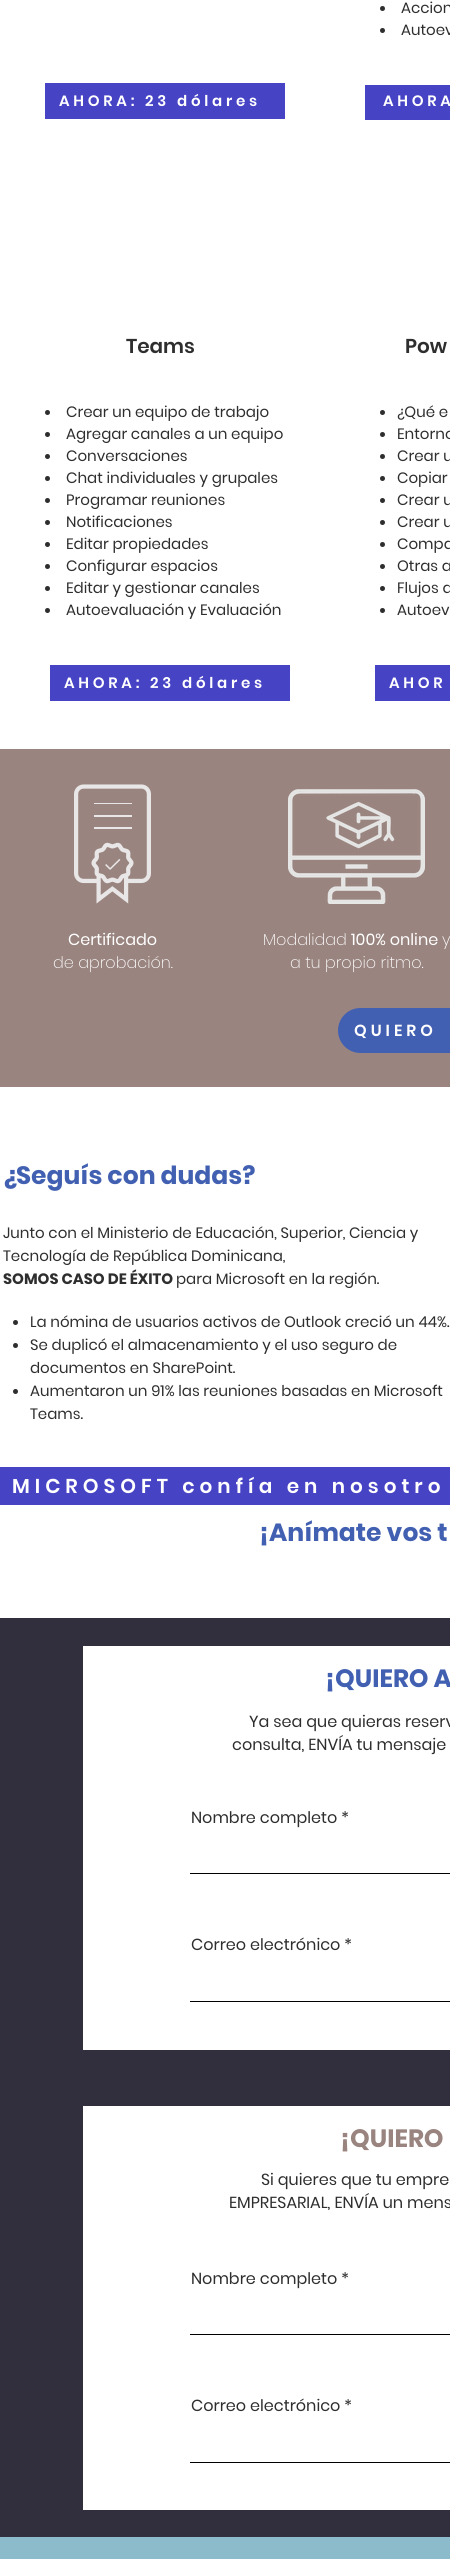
import math
import cairocffi as cairo

surface = cairo.ImageSurface(cairo.FORMAT_RGB24, 450, 2559)
cr = cairo.Context(surface)
options = cairo.FontOptions()
options.set_hint_metrics(cairo.HINT_METRICS_OFF)
options.set_hint_style(cairo.HINT_STYLE_NONE)
cr.set_font_options(options)
cr.set_miter_limit(4)


def use_color(code):
    cr.set_source_rgb(*(v / 255 for v in bytes.fromhex(code[-6:])))


def spaced_text(x, y, s, letter, word):
    cr.move_to(x, y)
    for ch in s:
        cr.show_text(ch)
        cr.rel_move_to(letter + word * (ch == ' '), 0)


def round_rect(x, y, w, h, r):
    cr.new_sub_path()
    for i, (u, v) in enumerate([(x + w - r, y + h - r), (x + r, y + h - r), (x + r, y + r), (x + w - r, y + r)]):
        cr.arc(u, v, r, i * math.pi / 2, (i + 1) * math.pi / 2)
    cr.close_path()


def picture(path, x, y, w, h):
    cr.save()
    cr.set_source_surface(cairo.ImageSurface.create_from_png(path), x, y)
    cr.rectangle(x, y, w, h)
    cr.fill()
    cr.restore()


use_color("#ffffff")
cr.paint()
use_color("#4743c5")
cr.rectangle(45, 83, 240, 36)
cr.fill()
cr.select_font_face("Poppins SemiBold")
cr.set_font_size(15)
use_color("#ffffff")
spaced_text(59, 106, "AHORA: 23 dólares", 3.75, 0)
use_color("#2f2e2e")
cr.new_path()
cr.arc(382.5, 8.5, 2.5, 0, 2 * math.pi)
cr.fill()
cr.select_font_face("Poppins")
cr.move_to(401, 13)
cr.show_text("Accion")
cr.new_path()
cr.arc(382.5, 30.5, 2.5, 0, 2 * math.pi)
cr.fill()
cr.move_to(401, 35)
cr.show_text("Autoev")
use_color("#4743c5")
cr.rectangle(365, 85, 85, 35)
cr.fill()
cr.select_font_face("Poppins SemiBold")
use_color("#ffffff")
spaced_text(383, 106, "AHORA", 3.75, 0)
cr.set_font_size(20)
use_color("#2f2e2e")
cr.move_to(126, 353)
cr.show_text("Teams")
cr.new_path()
cr.arc(47.5, 412.5, 2.5, 0, 2 * math.pi)
cr.fill()
cr.select_font_face("Poppins")
cr.set_font_size(15)
cr.move_to(66, 417)
cr.show_text("Crear un equipo de trabajo")
cr.new_path()
cr.arc(47.5, 434.5, 2.5, 0, 2 * math.pi)
cr.fill()
cr.move_to(66, 439)
cr.show_text("Agregar canales a un equipo")
cr.new_path()
cr.arc(47.5, 456.5, 2.5, 0, 2 * math.pi)
cr.fill()
cr.move_to(66, 461)
cr.show_text("Conversaciones")
cr.new_path()
cr.arc(47.5, 478.5, 2.5, 0, 2 * math.pi)
cr.fill()
cr.move_to(66, 483)
cr.show_text("Chat individuales y grupales")
cr.new_path()
cr.arc(47.5, 500.5, 2.5, 0, 2 * math.pi)
cr.fill()
cr.move_to(66, 505)
cr.show_text("Programar reuniones")
cr.new_path()
cr.arc(47.5, 522.5, 2.5, 0, 2 * math.pi)
cr.fill()
cr.move_to(66, 527)
cr.show_text("Notificaciones")
cr.new_path()
cr.arc(47.5, 544.5, 2.5, 0, 2 * math.pi)
cr.fill()
cr.move_to(66, 549)
cr.show_text("Editar propiedades")
cr.new_path()
cr.arc(47.5, 566.5, 2.5, 0, 2 * math.pi)
cr.fill()
cr.move_to(66, 571)
cr.show_text("Configurar espacios")
cr.new_path()
cr.arc(47.5, 588.5, 2.5, 0, 2 * math.pi)
cr.fill()
cr.move_to(66, 593)
cr.show_text("Editar y gestionar canales")
cr.new_path()
cr.arc(47.5, 610.5, 2.5, 0, 2 * math.pi)
cr.fill()
cr.move_to(66, 615)
cr.show_text("Autoevaluación y Evaluación")
use_color("#4743c5")
cr.rectangle(50, 665, 240, 36)
cr.fill()
cr.select_font_face("Poppins SemiBold")
use_color("#ffffff")
spaced_text(64, 688, "AHORA: 23 dólares", 3.75, 0)
cr.set_font_size(20)
use_color("#2f2e2e")
cr.move_to(405, 353)
cr.show_text("Pow")
cr.new_path()
cr.arc(382.5, 412.5, 2.5, 0, 2 * math.pi)
cr.fill()
cr.select_font_face("Poppins")
cr.set_font_size(15)
cr.move_to(397, 417)
cr.show_text("¿Qué e")
cr.new_path()
cr.arc(382.5, 434.5, 2.5, 0, 2 * math.pi)
cr.fill()
cr.move_to(397, 439)
cr.show_text("Entorno")
cr.new_path()
cr.arc(382.5, 456.5, 2.5, 0, 2 * math.pi)
cr.fill()
cr.move_to(397, 461)
cr.show_text("Crear u")
cr.new_path()
cr.arc(382.5, 478.5, 2.5, 0, 2 * math.pi)
cr.fill()
cr.move_to(397, 483)
cr.show_text("Copiar")
cr.new_path()
cr.arc(382.5, 500.5, 2.5, 0, 2 * math.pi)
cr.fill()
cr.move_to(397, 505)
cr.show_text("Crear u")
cr.new_path()
cr.arc(382.5, 522.5, 2.5, 0, 2 * math.pi)
cr.fill()
cr.move_to(397, 527)
cr.show_text("Crear u")
cr.new_path()
cr.arc(382.5, 544.5, 2.5, 0, 2 * math.pi)
cr.fill()
cr.move_to(397, 549)
cr.show_text("Compa")
cr.new_path()
cr.arc(382.5, 566.5, 2.5, 0, 2 * math.pi)
cr.fill()
cr.move_to(397, 571)
cr.show_text("Otras a")
cr.new_path()
cr.arc(382.5, 588.5, 2.5, 0, 2 * math.pi)
cr.fill()
cr.move_to(397, 593)
cr.show_text("Flujos d")
cr.new_path()
cr.arc(382.5, 610.5, 2.5, 0, 2 * math.pi)
cr.fill()
cr.move_to(397, 615)
cr.show_text("Autoev")
use_color("#4743c5")
cr.rectangle(375, 665, 75, 36)
cr.fill()
cr.select_font_face("Poppins SemiBold")
use_color("#ffffff")
spaced_text(389, 688, "AHOR", 3.75, 0)
use_color("#99847f")
cr.rectangle(0, 749, 450, 338)
cr.fill()
picture("img1.png", 74, 784, 77, 120)
picture("img2.png", 288, 789, 137, 115)
cr.select_font_face("Poppins")
cr.set_font_size(16)
use_color("#ffffff")
cr.move_to(68, 945)
cr.show_text("Certificado")
cr.select_font_face("Poppins ExtraLight")
cr.move_to(53, 968)
cr.show_text("de aprobación.")
cr.move_to(263, 945)
cr.show_text("Modalidad")
cr.select_font_face("Poppins")
cr.move_to(351, 945)
cr.show_text("100% online")
cr.select_font_face("Poppins ExtraLight")
cr.move_to(442, 945)
cr.show_text("y")
cr.move_to(290, 968)
cr.show_text("a tu propio ritmo.")
use_color("#4260b1")
round_rect(338, 1008, 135, 45, 22.5)
cr.fill()
cr.select_font_face("Poppins SemiBold")
use_color("#ffffff")
spaced_text(354, 1036, "QUIERO", 4, 0)
cr.select_font_face("Poppins", cairo.FONT_SLANT_NORMAL, cairo.FONT_WEIGHT_BOLD)
cr.set_font_size(25)
use_color("#4260b1")
cr.move_to(3, 1184)
cr.show_text("¿Seguís con dudas?")
cr.select_font_face("Poppins")
cr.set_font_size(15)
use_color("#2f2e2e")
cr.move_to(3, 1238)
cr.show_text("Junto con el Ministerio de Educación, Superior, Ciencia y")
cr.move_to(3, 1261)
cr.show_text("Tecnología de República Dominicana,")
cr.select_font_face("Poppins", cairo.FONT_SLANT_NORMAL, cairo.FONT_WEIGHT_BOLD)
cr.move_to(3, 1284)
cr.show_text("SOMOS CASO DE ÉXITO")
cr.select_font_face("Poppins")
cr.move_to(176, 1284)
cr.show_text("para Microsoft en la región.")
cr.new_path()
cr.arc(15.5, 1322.5, 2.5, 0, 2 * math.pi)
cr.fill()
cr.move_to(30, 1327)
cr.show_text("La nómina de usuarios activos de Outlook creció un 44%.")
cr.new_path()
cr.arc(15.5, 1345.5, 2.5, 0, 2 * math.pi)
cr.fill()
cr.move_to(30, 1350)
cr.show_text("Se duplicó el almacenamiento y el uso seguro de")
cr.move_to(30, 1373)
cr.show_text("documentos en SharePoint.")
cr.new_path()
cr.arc(15.5, 1391.5, 2.5, 0, 2 * math.pi)
cr.fill()
cr.move_to(30, 1396)
cr.show_text("Aumentaron un 91% las reuniones basadas en Microsoft")
cr.move_to(30, 1419)
cr.show_text("Teams.")
use_color("#4743c5")
cr.rectangle(0, 1467, 450, 38)
cr.fill()
cr.select_font_face("Poppins SemiBold")
cr.set_font_size(20)
use_color("#ffffff")
spaced_text(12, 1493, "MICROSOFT confía en nosotro", 5, 0)
cr.select_font_face("Poppins", cairo.FONT_SLANT_NORMAL, cairo.FONT_WEIGHT_BOLD)
cr.set_font_size(25)
use_color("#4260b1")
cr.move_to(259, 1541)
cr.show_text("¡Anímate vos t")
use_color("#312f3d")
cr.rectangle(0, 1618, 450, 919)
cr.fill()
use_color("#ffffff")
cr.rectangle(83, 1646, 367, 404)
cr.fill()
use_color("#4260b1")
cr.move_to(325, 1687)
cr.show_text("¡QUIERO A")
cr.select_font_face("Poppins")
cr.set_font_size(16)
use_color("#2f2e2e")
cr.move_to(249, 1727)
cr.show_text("Ya sea que quieras reserv")
cr.move_to(232, 1750)
cr.show_text("consulta, ENVÍA tu mensaje")
cr.move_to(191, 1823)
cr.show_text("Nombre completo *")
use_color("#000000")
cr.rectangle(190, 1873, 260, 1)
cr.fill()
use_color("#2f2e2e")
cr.move_to(191, 1950)
cr.show_text("Correo electrónico *")
use_color("#000000")
cr.rectangle(190, 2001, 260, 1)
cr.fill()
use_color("#ffffff")
cr.rectangle(83, 2106, 367, 404)
cr.fill()
cr.select_font_face("Poppins", cairo.FONT_SLANT_NORMAL, cairo.FONT_WEIGHT_BOLD)
cr.set_font_size(25)
use_color("#99847f")
cr.move_to(340, 2147)
cr.show_text("¡QUIERO")
cr.select_font_face("Poppins")
cr.set_font_size(16)
use_color("#2f2e2e")
cr.move_to(261, 2185)
cr.show_text("Si quieres que tu empre")
cr.move_to(229, 2208)
cr.show_text("EMPRESARIAL, ENVÍA un mens")
cr.move_to(191, 2284)
cr.show_text("Nombre completo *")
use_color("#000000")
cr.rectangle(190, 2334, 260, 1)
cr.fill()
use_color("#2f2e2e")
cr.move_to(191, 2411)
cr.show_text("Correo electrónico *")
use_color("#000000")
cr.rectangle(190, 2462, 260, 1)
cr.fill()
use_color("#8cbbcb")
cr.rectangle(0, 2537, 450, 22)
cr.fill()
surface.write_to_png("result.png")
